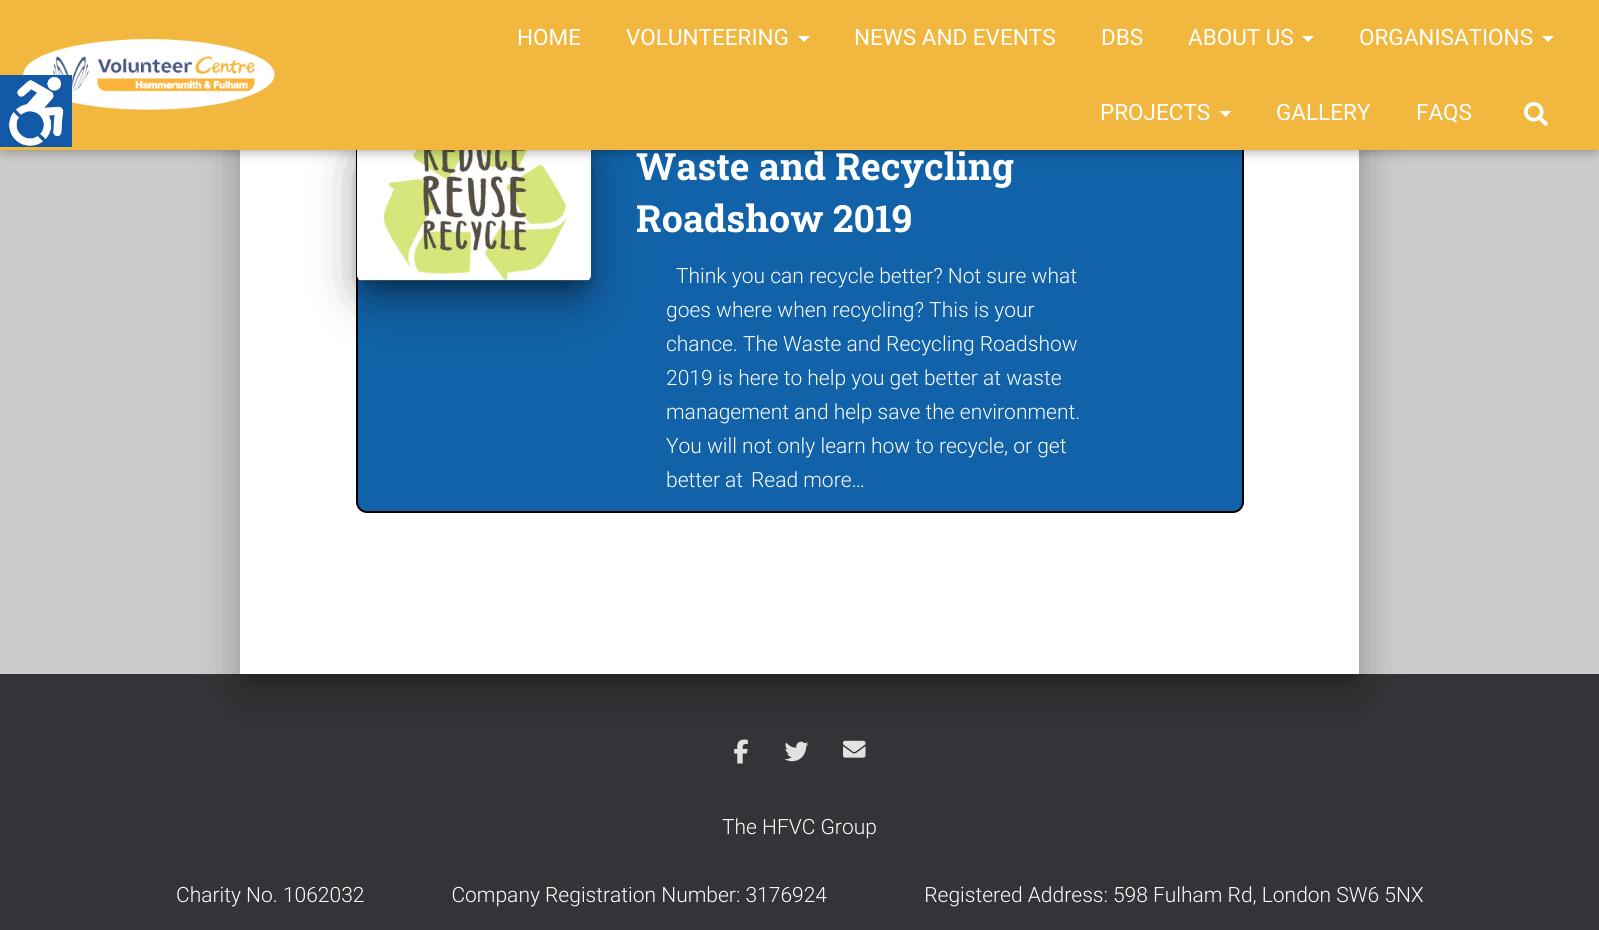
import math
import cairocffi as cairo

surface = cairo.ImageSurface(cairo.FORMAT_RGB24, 1599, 930)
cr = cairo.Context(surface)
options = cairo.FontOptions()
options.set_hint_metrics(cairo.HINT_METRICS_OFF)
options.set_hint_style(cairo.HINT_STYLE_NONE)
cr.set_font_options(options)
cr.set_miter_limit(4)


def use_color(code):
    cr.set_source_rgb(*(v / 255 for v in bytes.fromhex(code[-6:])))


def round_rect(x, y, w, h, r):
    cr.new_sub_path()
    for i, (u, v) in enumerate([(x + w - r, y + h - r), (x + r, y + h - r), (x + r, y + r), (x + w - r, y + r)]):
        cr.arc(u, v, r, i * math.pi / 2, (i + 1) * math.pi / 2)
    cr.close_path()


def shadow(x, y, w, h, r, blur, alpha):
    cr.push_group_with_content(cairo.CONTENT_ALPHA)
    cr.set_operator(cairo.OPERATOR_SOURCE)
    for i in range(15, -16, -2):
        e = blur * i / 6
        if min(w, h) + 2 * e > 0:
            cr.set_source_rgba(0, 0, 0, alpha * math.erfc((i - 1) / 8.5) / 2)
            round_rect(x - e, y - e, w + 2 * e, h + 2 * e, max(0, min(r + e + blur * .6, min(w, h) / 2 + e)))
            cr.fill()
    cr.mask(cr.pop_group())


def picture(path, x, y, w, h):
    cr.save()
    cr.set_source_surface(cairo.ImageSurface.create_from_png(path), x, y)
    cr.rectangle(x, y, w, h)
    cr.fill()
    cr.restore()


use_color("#cccccc")
cr.paint()
use_color("#323437")
cr.rectangle(0, 674, 1599, 256)
cr.fill()
use_color("#000000")
shadow(248, 0, 1104, 678, 1.5, 7.5, 0.2)
shadow(233, -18, 1134, 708, 17, 22.5, 0.12)
shadow(237, 2, 1125, 699, 12, 18, 0.14)
use_color("#ffffff")
cr.rectangle(240, 150, 1119, 524)
cr.fill()
use_color("#1162a8")
round_rect(357, 124, 886, 388, 10)
cr.fill_preserve()
use_color("#000000")
cr.stroke()
use_color("#000000")
shadow(365, 144, 219, 141, 0, 7.5, 0.2)
shadow(357, 131, 234, 156, 5, 19, 0.12)
shadow(375, 167, 198, 120, 0, 28.5, 0.56)
picture("img4.png", 357, 150, 234, 131)
shadow(3, 9, 1593, 144, 0, 4, 0.1)
shadow(0, 2, 1599, 150, 0, 7.5, 0.12)
shadow(9, 11, 1581, 132, 0, 7.5, 0.42)
use_color("#f1b73f")
cr.rectangle(0, 0, 1599, 150)
cr.fill()
picture("img2.png", 23, 39, 252, 71)
use_color("#f1b73f")
shadow(0, 77, 72, 72, 5, 4, 0.12)
shadow(0, 78, 72, 72, 5, 1.5, 0.14)
picture("img1.png", 0, 75, 72, 72)
cr.select_font_face("Roboto")
cr.set_font_size(22.5)
use_color("#ffffff")
cr.move_to(517, 45)
cr.show_text("HOME")
cr.move_to(626, 45)
cr.show_text("VOLUNTEERING")
cr.new_path()
cr.move_to(798, 36)
cr.line_to(810, 36)
cr.line_to(804, 42)
cr.close_path()
cr.fill()
cr.move_to(854, 45)
cr.show_text("NEWS AND EVENTS")
cr.move_to(1101, 45)
cr.show_text("DBS")
cr.move_to(1188, 45)
cr.show_text("ABOUT US")
cr.new_path()
cr.move_to(1302, 36)
cr.line_to(1314, 36)
cr.line_to(1308, 42)
cr.close_path()
cr.fill()
cr.move_to(1359, 45)
cr.show_text("ORGANISATIONS")
cr.new_path()
cr.move_to(1542, 36)
cr.line_to(1554, 36)
cr.line_to(1548, 42)
cr.close_path()
cr.fill()
cr.move_to(1100, 120)
cr.show_text("PROJECTS")
cr.new_path()
cr.move_to(1219.5, 111)
cr.line_to(1231.5, 111)
cr.line_to(1225.5, 117)
cr.close_path()
cr.fill()
cr.move_to(1276, 120)
cr.show_text("GALLERY")
cr.move_to(1416, 120)
cr.show_text("FAQS")
picture("img3.png", 1524, 102, 24, 24)
cr.select_font_face("Roboto Slab", cairo.FONT_SLANT_NORMAL, cairo.FONT_WEIGHT_BOLD)
cr.set_font_size(37.5)
cr.move_to(636, 180)
cr.show_text("Waste and Recycling")
cr.move_to(636, 232)
cr.show_text("Roadshow 2019")
cr.select_font_face("Roboto Light")
cr.set_font_size(21)
cr.move_to(676, 283)
cr.show_text("Think you can recycle better? Not sure what")
cr.move_to(666, 317)
cr.show_text("goes where when recycling? This is your")
cr.move_to(666, 351)
cr.show_text("chance. The Waste and Recycling Roadshow")
cr.move_to(666, 385)
cr.show_text("2019 is here to help you get better at waste")
cr.move_to(666, 419)
cr.show_text("management and help save the environment.")
cr.move_to(666, 453)
cr.show_text("You will not only learn how to recycle, or get")
cr.move_to(666, 487)
cr.show_text("better at")
cr.move_to(751, 487)
cr.show_text("Read more…")
picture("img5.png", 734, 739, 14, 25)
picture("img6.png", 784, 741, 25, 21)
picture("img7.png", 843, 740, 23, 18)
cr.move_to(722, 834)
cr.show_text("The HFVC Group")
cr.move_to(176, 902)
cr.show_text("Charity No. 1062032                 Company Registration Number: 3176924                   Registered Address: 598 Fulham Rd, London SW6 5NX")
surface.write_to_png("result.png")
